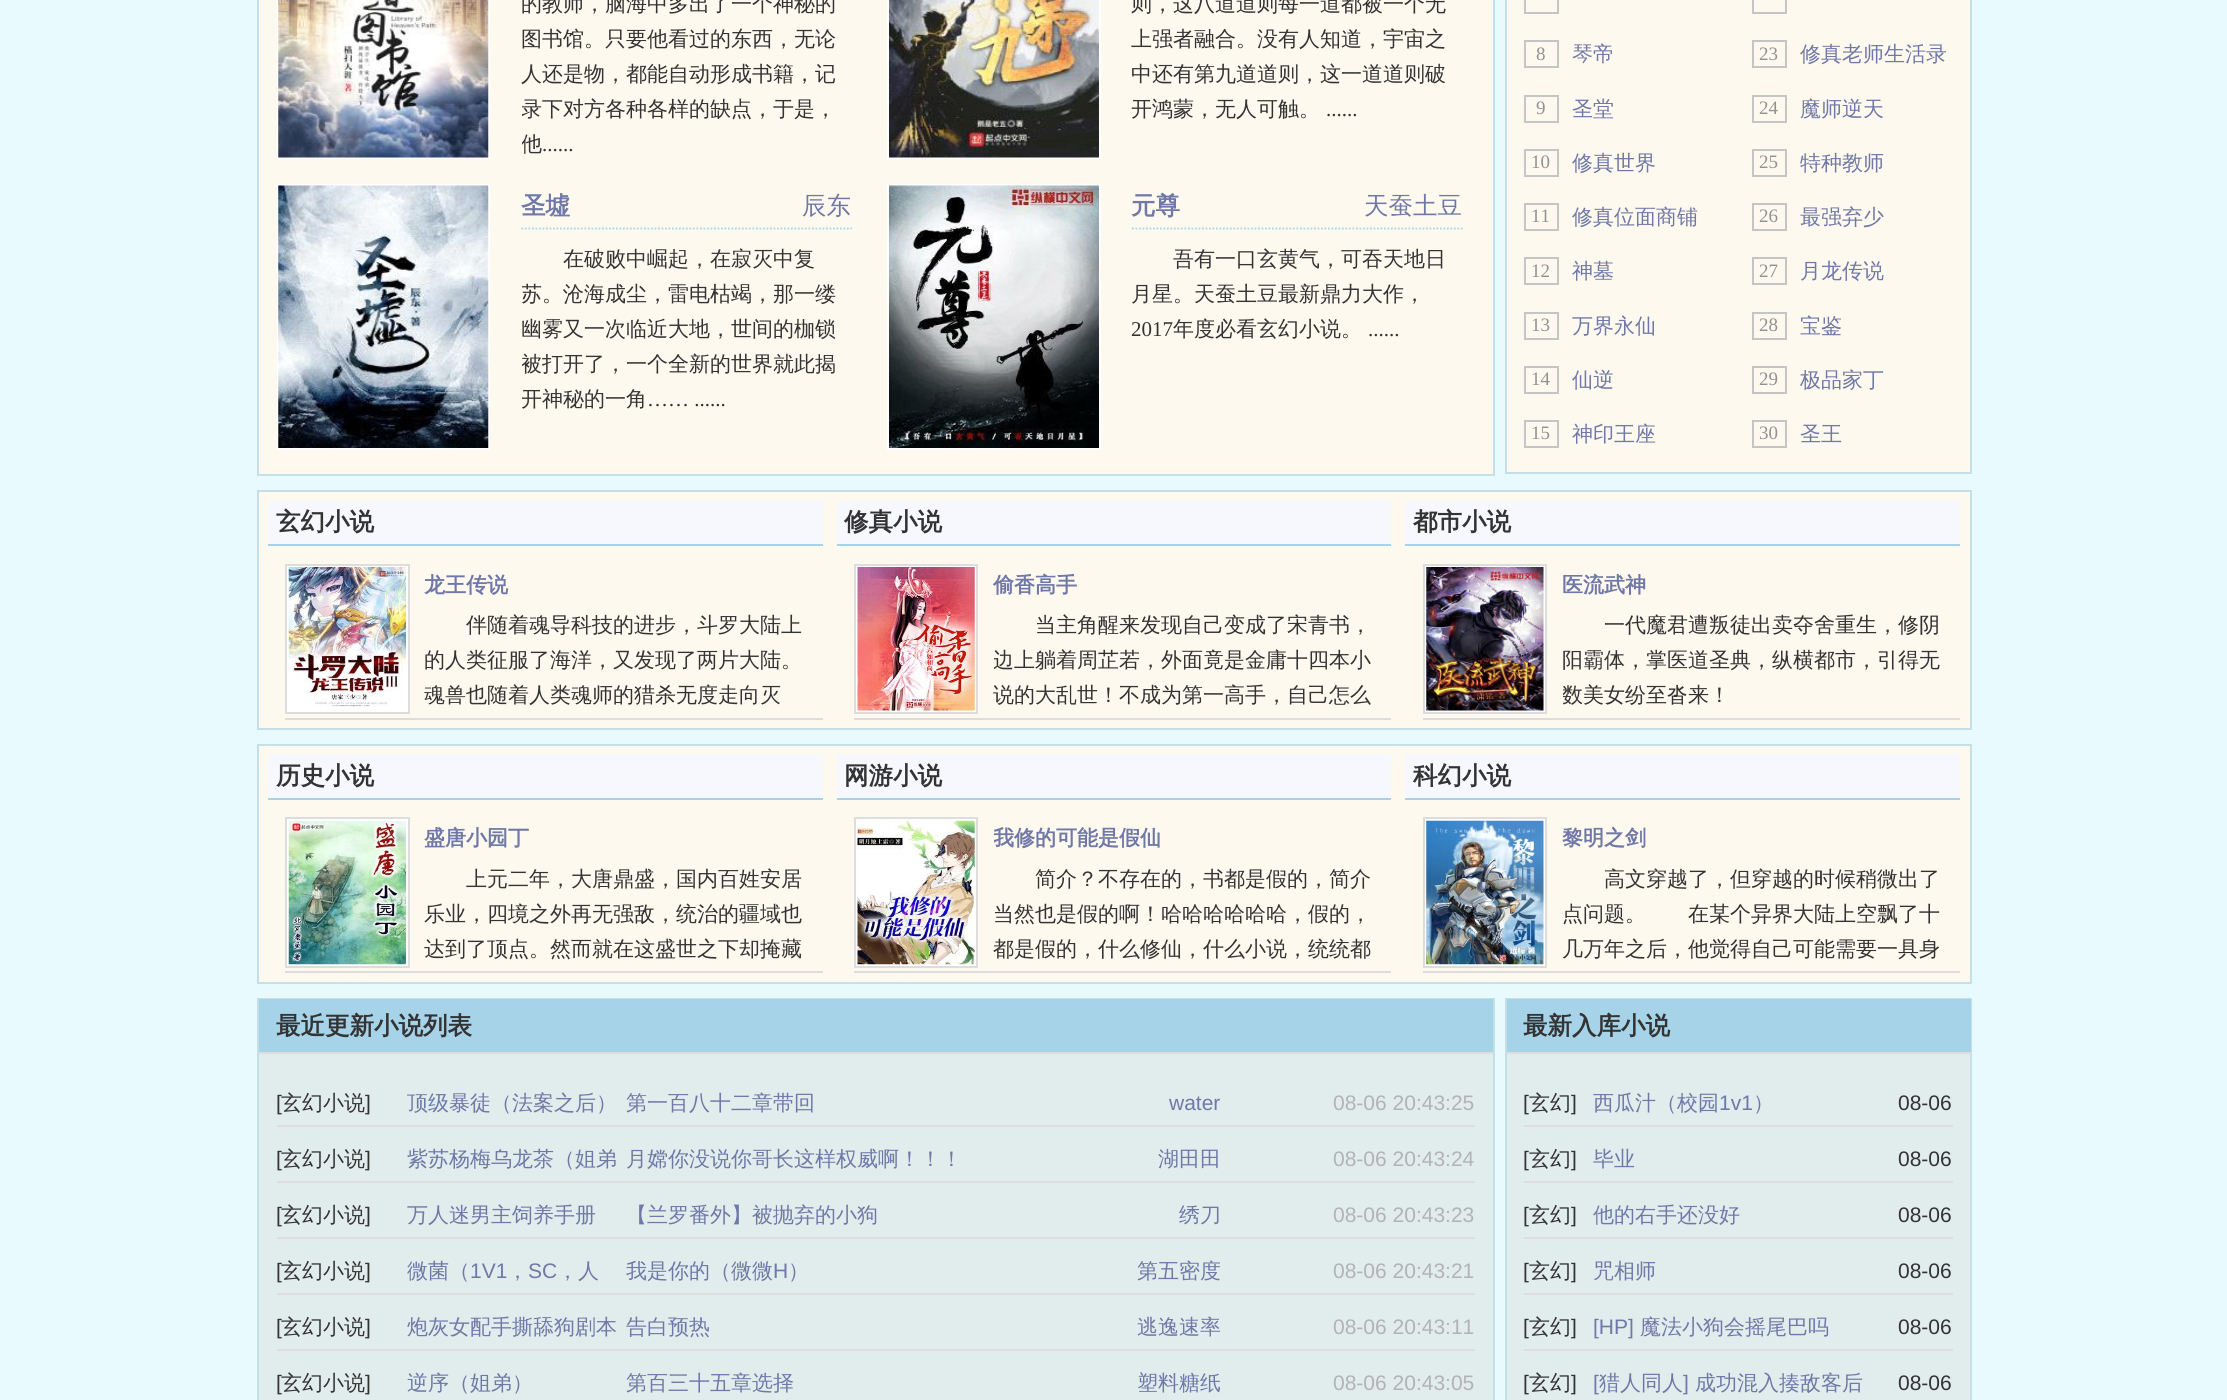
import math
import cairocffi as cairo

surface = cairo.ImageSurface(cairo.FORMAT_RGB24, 2227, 1400)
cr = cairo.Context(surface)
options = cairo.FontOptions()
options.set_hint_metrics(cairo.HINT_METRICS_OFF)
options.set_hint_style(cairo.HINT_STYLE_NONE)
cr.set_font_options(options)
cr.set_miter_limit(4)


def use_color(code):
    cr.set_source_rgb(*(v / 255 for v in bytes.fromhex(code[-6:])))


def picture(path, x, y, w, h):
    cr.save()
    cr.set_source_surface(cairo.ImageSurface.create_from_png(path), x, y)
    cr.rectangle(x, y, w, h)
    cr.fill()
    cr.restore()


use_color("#e9faff")
cr.paint()
use_color("#fef9ef")
cr.rectangle(258, -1, 1236, 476)
cr.fill_preserve()
use_color("#c3dfea")
cr.stroke()
use_color("#ffffff")
cr.rectangle(277, 0, 213, 159)
cr.fill()
picture("img1.png", 278, 0, 211, 158)
cr.select_font_face("WenQuanYi Zen Hei Medium")
cr.set_font_size(21)
use_color("#333333")
cr.move_to(521, 11)
cr.show_text("的教师，脑海中多出了一个神秘的")
cr.move_to(521, 46)
cr.show_text("图书馆。只要他看过的东西，无论")
cr.move_to(521, 81)
cr.show_text("人还是物，都能自动形成书籍，记")
cr.save()
cr.rectangle(522, 0, 330, 161)
cr.clip()
cr.move_to(521, 116)
cr.show_text("录下对方各种各样的缺点，于是，")
cr.move_to(521, 151)
cr.show_text("他")
cr.restore()
cr.select_font_face("Liberation Serif")
cr.move_to(542, 151)
cr.show_text("......")
use_color("#ffffff")
cr.rectangle(887, 0, 214, 159)
cr.fill()
picture("img2.png", 889, 0, 210, 158)
cr.select_font_face("WenQuanYi Zen Hei Medium")
use_color("#333333")
cr.move_to(1131, 11)
cr.show_text("则，这八道道则每一道都被一个无")
cr.move_to(1131, 46)
cr.show_text("上强者融合。没有人知道，宇宙之")
cr.move_to(1131, 81)
cr.show_text("中还有第九道道则，这一道道则破")
cr.move_to(1131, 116)
cr.show_text("开鸿蒙，无人可触。")
cr.select_font_face("Liberation Serif")
cr.move_to(1326, 116)
cr.show_text("......")
use_color("#ffffff")
cr.rectangle(277, 184, 213, 266)
cr.fill()
picture("img3.png", 278, 185, 211, 263)
cr.new_path()
cr.move_to(521.5, 228.5)
cr.line_to(852, 228.5)
use_color("#a6d3e8")
cr.set_line_width(1.8)
cr.set_dash([1.75, 1.75])
cr.stroke()
cr.select_font_face("WenQuanYi Zen Hei", cairo.FONT_SLANT_NORMAL, cairo.FONT_WEIGHT_BOLD)
cr.set_font_size(24.5)
use_color("#6f78a7")
cr.move_to(521, 214)
cr.show_text("圣墟")
cr.select_font_face("WenQuanYi Zen Hei Medium")
cr.move_to(802, 214)
cr.show_text("辰东")
cr.set_font_size(21)
use_color("#333333")
cr.move_to(563, 266)
cr.show_text("在破败中崛起，在寂灭中复")
cr.save()
cr.rectangle(522, 229, 330, 223)
cr.clip()
cr.move_to(521, 301)
cr.show_text("苏。沧海成尘，雷电枯竭，那一缕")
cr.restore()
cr.move_to(521, 336)
cr.show_text("幽雾又一次临近大地，世间的枷锁")
cr.save()
cr.rectangle(522, 229, 330, 223)
cr.clip()
cr.move_to(521, 371)
cr.show_text("被打开了，一个全新的世界就此揭")
cr.move_to(521, 406)
cr.show_text("开神秘的一角")
cr.restore()
cr.select_font_face("Liberation Serif")
cr.move_to(647, 406)
cr.show_text("…… ......")
use_color("#ffffff")
cr.rectangle(887, 184, 214, 266)
cr.fill()
picture("img4.png", 889, 185, 210, 263)
cr.new_path()
cr.move_to(1132, 228.5)
cr.line_to(1463, 228.5)
use_color("#a6d3e8")
cr.stroke()
cr.select_font_face("WenQuanYi Zen Hei", cairo.FONT_SLANT_NORMAL, cairo.FONT_WEIGHT_BOLD)
cr.set_font_size(24.5)
use_color("#6f78a7")
cr.move_to(1131, 214)
cr.show_text("元尊")
cr.select_font_face("WenQuanYi Zen Hei Medium")
cr.move_to(1364, 214)
cr.show_text("天蚕土豆")
cr.set_font_size(21)
use_color("#333333")
cr.move_to(1173, 266)
cr.show_text("吾有一口玄黄气，可吞天地日")
cr.move_to(1131, 301)
cr.show_text("月星。天蚕土豆最新鼎力大作，")
cr.select_font_face("Liberation Serif")
cr.move_to(1131, 336)
cr.show_text("2017")
cr.select_font_face("WenQuanYi Zen Hei Medium")
cr.move_to(1173, 336)
cr.show_text("年度必看玄幻小说。")
cr.select_font_face("Liberation Serif")
cr.move_to(1368, 336)
cr.show_text("......")
use_color("#fef9ef")
cr.rectangle(1506, -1, 465, 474)
cr.fill_preserve()
use_color("#c3dfea")
cr.set_line_width(2)
cr.set_dash([])
cr.stroke()
cr.rectangle(1525, -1, 33, 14)
use_color("#c5c5c5")
cr.stroke()
cr.rectangle(1525, 41, 33, 26)
cr.stroke()
cr.set_font_size(19)
use_color("#929292")
cr.move_to(1536, 60)
cr.show_text("8")
cr.select_font_face("WenQuanYi Zen Hei Medium")
cr.set_font_size(21)
use_color("#6f78a7")
cr.move_to(1572, 61)
cr.show_text("琴帝")
cr.rectangle(1525, 96, 33, 26)
use_color("#c5c5c5")
cr.stroke()
cr.select_font_face("Liberation Serif")
cr.set_font_size(19)
use_color("#929292")
cr.move_to(1536, 114)
cr.show_text("9")
cr.select_font_face("WenQuanYi Zen Hei Medium")
cr.set_font_size(21)
use_color("#6f78a7")
cr.move_to(1572, 116)
cr.show_text("圣堂")
cr.rectangle(1525, 150, 33, 26)
use_color("#c5c5c5")
cr.stroke()
cr.select_font_face("Liberation Serif")
cr.set_font_size(19)
use_color("#929292")
cr.move_to(1531, 168)
cr.show_text("10")
cr.select_font_face("WenQuanYi Zen Hei Medium")
cr.set_font_size(21)
use_color("#6f78a7")
cr.move_to(1572, 170)
cr.show_text("修真世界")
cr.rectangle(1525, 204, 33, 26)
use_color("#c5c5c5")
cr.stroke()
cr.select_font_face("Liberation Serif")
cr.set_font_size(19)
use_color("#929292")
cr.move_to(1531, 222)
cr.show_text("11")
cr.select_font_face("WenQuanYi Zen Hei Medium")
cr.set_font_size(21)
use_color("#6f78a7")
cr.move_to(1572, 224)
cr.show_text("修真位面商铺")
cr.rectangle(1525, 258, 33, 26)
use_color("#c5c5c5")
cr.stroke()
cr.select_font_face("Liberation Serif")
cr.set_font_size(19)
use_color("#929292")
cr.move_to(1531, 277)
cr.show_text("12")
cr.select_font_face("WenQuanYi Zen Hei Medium")
cr.set_font_size(21)
use_color("#6f78a7")
cr.move_to(1572, 278)
cr.show_text("神墓")
cr.rectangle(1525, 313, 33, 26)
use_color("#c5c5c5")
cr.stroke()
cr.select_font_face("Liberation Serif")
cr.set_font_size(19)
use_color("#929292")
cr.move_to(1531, 331)
cr.show_text("13")
cr.select_font_face("WenQuanYi Zen Hei Medium")
cr.set_font_size(21)
use_color("#6f78a7")
cr.move_to(1572, 333)
cr.show_text("万界永仙")
cr.rectangle(1525, 367, 33, 26)
use_color("#c5c5c5")
cr.stroke()
cr.select_font_face("Liberation Serif")
cr.set_font_size(19)
use_color("#929292")
cr.move_to(1531, 385)
cr.show_text("14")
cr.select_font_face("WenQuanYi Zen Hei Medium")
cr.set_font_size(21)
use_color("#6f78a7")
cr.move_to(1572, 387)
cr.show_text("仙逆")
cr.rectangle(1525, 421, 33, 26)
use_color("#c5c5c5")
cr.stroke()
cr.select_font_face("Liberation Serif")
cr.set_font_size(19)
use_color("#929292")
cr.move_to(1531, 439)
cr.show_text("15")
cr.select_font_face("WenQuanYi Zen Hei Medium")
cr.set_font_size(21)
use_color("#6f78a7")
cr.move_to(1572, 441)
cr.show_text("神印王座")
cr.rectangle(1753, -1, 33, 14)
use_color("#c5c5c5")
cr.stroke()
cr.rectangle(1753, 41, 33, 26)
cr.stroke()
cr.select_font_face("Liberation Serif")
cr.set_font_size(19)
use_color("#929292")
cr.move_to(1759, 60)
cr.show_text("23")
cr.select_font_face("WenQuanYi Zen Hei Medium")
cr.set_font_size(21)
use_color("#6f78a7")
cr.move_to(1800, 61)
cr.show_text("修真老师生活录")
cr.rectangle(1753, 96, 33, 26)
use_color("#c5c5c5")
cr.stroke()
cr.select_font_face("Liberation Serif")
cr.set_font_size(19)
use_color("#929292")
cr.move_to(1759, 114)
cr.show_text("24")
cr.select_font_face("WenQuanYi Zen Hei Medium")
cr.set_font_size(21)
use_color("#6f78a7")
cr.move_to(1800, 116)
cr.show_text("魔师逆天")
cr.rectangle(1753, 150, 33, 26)
use_color("#c5c5c5")
cr.stroke()
cr.select_font_face("Liberation Serif")
cr.set_font_size(19)
use_color("#929292")
cr.move_to(1759, 168)
cr.show_text("25")
cr.select_font_face("WenQuanYi Zen Hei Medium")
cr.set_font_size(21)
use_color("#6f78a7")
cr.move_to(1800, 170)
cr.show_text("特种教师")
cr.rectangle(1753, 204, 33, 26)
use_color("#c5c5c5")
cr.stroke()
cr.select_font_face("Liberation Serif")
cr.set_font_size(19)
use_color("#929292")
cr.move_to(1759, 222)
cr.show_text("26")
cr.select_font_face("WenQuanYi Zen Hei Medium")
cr.set_font_size(21)
use_color("#6f78a7")
cr.move_to(1800, 224)
cr.show_text("最强弃少")
cr.rectangle(1753, 258, 33, 26)
use_color("#c5c5c5")
cr.stroke()
cr.select_font_face("Liberation Serif")
cr.set_font_size(19)
use_color("#929292")
cr.move_to(1759, 277)
cr.show_text("27")
cr.select_font_face("WenQuanYi Zen Hei Medium")
cr.set_font_size(21)
use_color("#6f78a7")
cr.move_to(1800, 278)
cr.show_text("月龙传说")
cr.rectangle(1753, 313, 33, 26)
use_color("#c5c5c5")
cr.stroke()
cr.select_font_face("Liberation Serif")
cr.set_font_size(19)
use_color("#929292")
cr.move_to(1759, 331)
cr.show_text("28")
cr.select_font_face("WenQuanYi Zen Hei Medium")
cr.set_font_size(21)
use_color("#6f78a7")
cr.move_to(1800, 333)
cr.show_text("宝鉴")
cr.rectangle(1753, 367, 33, 26)
use_color("#c5c5c5")
cr.stroke()
cr.select_font_face("Liberation Serif")
cr.set_font_size(19)
use_color("#929292")
cr.move_to(1759, 385)
cr.show_text("29")
cr.select_font_face("WenQuanYi Zen Hei Medium")
cr.set_font_size(21)
use_color("#6f78a7")
cr.move_to(1800, 387)
cr.show_text("极品家丁")
cr.rectangle(1753, 421, 33, 26)
use_color("#c5c5c5")
cr.stroke()
cr.select_font_face("Liberation Serif")
cr.set_font_size(19)
use_color("#929292")
cr.move_to(1759, 439)
cr.show_text("30")
cr.select_font_face("WenQuanYi Zen Hei Medium")
cr.set_font_size(21)
use_color("#6f78a7")
cr.move_to(1800, 441)
cr.show_text("圣王")
use_color("#fef9ef")
cr.rectangle(258, 491, 1713, 238)
cr.fill_preserve()
use_color("#c3dfea")
cr.stroke()
use_color("#f6f8fe")
cr.rectangle(268, 501, 555, 43)
cr.fill()
use_color("#a6d3e8")
cr.rectangle(268, 544, 555, 2)
cr.fill()
cr.select_font_face("WenQuanYi Zen Hei", cairo.FONT_SLANT_NORMAL, cairo.FONT_WEIGHT_BOLD)
cr.set_font_size(24.5)
use_color("#333333")
cr.move_to(276, 530)
cr.show_text("玄幻小说")
use_color("#ffffff")
cr.rectangle(286, 565, 123, 148)
cr.fill_preserve()
use_color("#dddddd")
cr.stroke()
picture("img5.png", 288, 567, 118, 144)
cr.set_font_size(21)
use_color("#6f78a7")
cr.move_to(424, 592)
cr.show_text("龙王传说")
cr.select_font_face("WenQuanYi Zen Hei Medium")
use_color("#333333")
cr.move_to(466, 632)
cr.show_text("伴随着魂导科技的进步，斗罗大陆上")
cr.move_to(424, 667)
cr.show_text("的人类征服了海洋，又发现了两片大陆。")
cr.move_to(424, 702)
cr.show_text("魂兽也随着人类魂师的猎杀无度走向灭")
use_color("#dddddd")
cr.rectangle(285, 718, 538, 2)
cr.fill()
use_color("#f6f8fe")
cr.rectangle(837, 501, 554, 43)
cr.fill()
use_color("#a6d3e8")
cr.rectangle(837, 544, 554, 2)
cr.fill()
cr.select_font_face("WenQuanYi Zen Hei", cairo.FONT_SLANT_NORMAL, cairo.FONT_WEIGHT_BOLD)
cr.set_font_size(24.5)
use_color("#333333")
cr.move_to(844, 530)
cr.show_text("修真小说")
use_color("#ffffff")
cr.rectangle(855, 565, 122, 148)
cr.fill_preserve()
use_color("#dddddd")
cr.stroke()
picture("img6.png", 857, 567, 118, 144)
cr.set_font_size(21)
use_color("#6f78a7")
cr.move_to(993, 592)
cr.show_text("偷香高手")
cr.select_font_face("WenQuanYi Zen Hei Medium")
use_color("#333333")
cr.move_to(1035, 632)
cr.show_text("当主角醒来发现自己变成了宋青书，")
cr.save()
cr.rectangle(994, 607, 397, 105)
cr.clip()
cr.move_to(993, 667)
cr.show_text("边上躺着周芷若，外面竟是金庸十四本小")
cr.restore()
cr.move_to(993, 702)
cr.show_text("说的大乱世！不成为第一高手，自己怎么")
use_color("#dddddd")
cr.rectangle(854, 718, 537, 2)
cr.fill()
use_color("#f6f8fe")
cr.rectangle(1405, 501, 555, 43)
cr.fill()
use_color("#a6d3e8")
cr.rectangle(1405, 544, 555, 2)
cr.fill()
cr.select_font_face("WenQuanYi Zen Hei", cairo.FONT_SLANT_NORMAL, cairo.FONT_WEIGHT_BOLD)
cr.set_font_size(24.5)
use_color("#333333")
cr.move_to(1413, 530)
cr.show_text("都市小说")
use_color("#ffffff")
cr.rectangle(1424, 565, 122, 148)
cr.fill_preserve()
use_color("#dddddd")
cr.stroke()
picture("img7.png", 1426, 567, 118, 144)
cr.set_font_size(21)
use_color("#6f78a7")
cr.move_to(1562, 592)
cr.show_text("医流武神")
cr.select_font_face("WenQuanYi Zen Hei Medium")
use_color("#333333")
cr.move_to(1604, 632)
cr.show_text("一代魔君遭叛徒出卖夺舍重生，修阴")
cr.move_to(1562, 667)
cr.show_text("阳霸体，掌医道圣典，纵横都市，引得无")
cr.save()
cr.rectangle(1563, 607, 397, 105)
cr.clip()
cr.move_to(1562, 702)
cr.show_text("数美女纷至沓来！")
cr.restore()
use_color("#dddddd")
cr.rectangle(1423, 718, 537, 2)
cr.fill()
use_color("#fef9ef")
cr.rectangle(258, 745, 1713, 238)
cr.fill_preserve()
use_color("#c3dfea")
cr.stroke()
use_color("#f6f8fe")
cr.rectangle(268, 754, 555, 44)
cr.fill()
use_color("#a6d3e8")
cr.rectangle(268, 798, 555, 2)
cr.fill()
cr.select_font_face("WenQuanYi Zen Hei", cairo.FONT_SLANT_NORMAL, cairo.FONT_WEIGHT_BOLD)
cr.set_font_size(24.5)
use_color("#333333")
cr.move_to(276, 784)
cr.show_text("历史小说")
use_color("#ffffff")
cr.rectangle(286, 818, 123, 149)
cr.fill_preserve()
use_color("#dddddd")
cr.stroke()
picture("img8.png", 288, 820, 118, 145)
cr.set_font_size(21)
use_color("#6f78a7")
cr.move_to(424, 845)
cr.show_text("盛唐小园丁")
cr.select_font_face("WenQuanYi Zen Hei Medium")
use_color("#333333")
cr.move_to(466, 886)
cr.show_text("上元二年，大唐鼎盛，国内百姓安居")
cr.move_to(424, 921)
cr.show_text("乐业，四境之外再无强敌，统治的疆域也")
cr.move_to(424, 956)
cr.show_text("达到了顶点。然而就在这盛世之下却掩藏")
use_color("#dddddd")
cr.rectangle(285, 971, 538, 2)
cr.fill()
use_color("#f6f8fe")
cr.rectangle(837, 754, 554, 44)
cr.fill()
use_color("#a6d3e8")
cr.rectangle(837, 798, 554, 2)
cr.fill()
cr.select_font_face("WenQuanYi Zen Hei", cairo.FONT_SLANT_NORMAL, cairo.FONT_WEIGHT_BOLD)
cr.set_font_size(24.5)
use_color("#333333")
cr.move_to(844, 784)
cr.show_text("网游小说")
use_color("#ffffff")
cr.rectangle(855, 818, 122, 149)
cr.fill_preserve()
use_color("#dddddd")
cr.stroke()
picture("img9.png", 857, 820, 118, 145)
cr.save()
cr.rectangle(994, 817, 397, 44)
cr.clip()
cr.set_font_size(21)
use_color("#6f78a7")
cr.move_to(993, 845)
cr.show_text("我修的可能是假仙")
cr.restore()
cr.select_font_face("WenQuanYi Zen Hei Medium")
cr.set_font_size(21)
use_color("#333333")
cr.move_to(1035, 886)
cr.show_text("简介？不存在的，书都是假的，简介")
cr.move_to(993, 921)
cr.show_text("当然也是假的啊！哈哈哈哈哈哈，假的，")
cr.move_to(993, 956)
cr.show_text("都是假的，什么修仙，什么小说，统统都")
use_color("#dddddd")
cr.rectangle(854, 971, 537, 2)
cr.fill()
use_color("#f6f8fe")
cr.rectangle(1405, 754, 555, 44)
cr.fill()
use_color("#a6d3e8")
cr.rectangle(1405, 798, 555, 2)
cr.fill()
cr.select_font_face("WenQuanYi Zen Hei", cairo.FONT_SLANT_NORMAL, cairo.FONT_WEIGHT_BOLD)
cr.set_font_size(24.5)
use_color("#333333")
cr.move_to(1413, 784)
cr.show_text("科幻小说")
use_color("#ffffff")
cr.rectangle(1424, 818, 122, 149)
cr.fill_preserve()
use_color("#dddddd")
cr.stroke()
picture("img10.png", 1426, 820, 118, 145)
cr.set_font_size(21)
use_color("#6f78a7")
cr.move_to(1562, 845)
cr.show_text("黎明之剑")
cr.select_font_face("WenQuanYi Zen Hei Medium")
use_color("#333333")
cr.move_to(1604, 886)
cr.show_text("高文穿越了，但穿越的时候稍微出了")
cr.move_to(1562, 921)
cr.show_text("点问题。　　在某个异界大陆上空飘了十")
cr.move_to(1562, 956)
cr.show_text("几万年之后，他觉得自己可能需要一具身")
use_color("#dddddd")
cr.rectangle(1423, 971, 537, 2)
cr.fill()
use_color("#e1eced")
cr.rectangle(259, 1054, 1234, 346)
cr.fill()
cr.rectangle(258, 999, 1236, 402)
use_color("#c3dfea")
cr.stroke()
use_color("#a6d3e8")
cr.rectangle(259, 999, 1234, 53)
cr.fill()
use_color("#dddddd")
cr.rectangle(259, 1052, 1234, 2)
cr.fill()
cr.select_font_face("WenQuanYi Zen Hei", cairo.FONT_SLANT_NORMAL, cairo.FONT_WEIGHT_BOLD)
cr.set_font_size(24.5)
use_color("#333333")
cr.move_to(276, 1034)
cr.show_text("最近更新小说列表")
use_color("#dddddd")
cr.rectangle(277, 1125, 1198, 2)
cr.fill()
cr.select_font_face("Liberation Sans")
cr.set_font_size(21)
use_color("#333333")
cr.move_to(276, 1110)
cr.show_text("[")
cr.select_font_face("WenQuanYi Zen Hei Medium")
cr.move_to(281, 1110)
cr.show_text("玄幻小说")
cr.select_font_face("Liberation Sans")
cr.move_to(365, 1110)
cr.show_text("]")
cr.select_font_face("WenQuanYi Zen Hei Medium")
use_color("#6f78a7")
cr.move_to(407, 1110)
cr.show_text("顶级暴徒（法案之后）")
cr.move_to(626, 1110)
cr.show_text("第一百八十二章带回")
cr.select_font_face("Liberation Sans")
cr.move_to(1169, 1110)
cr.show_text("water")
use_color("#b3b3b3")
cr.move_to(1333, 1110)
cr.show_text("08-06 20:43:25")
use_color("#dddddd")
cr.rectangle(277, 1181, 1198, 2)
cr.fill()
use_color("#333333")
cr.move_to(276, 1166)
cr.show_text("[")
cr.select_font_face("WenQuanYi Zen Hei Medium")
cr.move_to(281, 1166)
cr.show_text("玄幻小说")
cr.select_font_face("Liberation Sans")
cr.move_to(365, 1166)
cr.show_text("]")
cr.select_font_face("WenQuanYi Zen Hei Medium")
use_color("#6f78a7")
cr.move_to(407, 1166)
cr.show_text("紫苏杨梅乌龙茶（姐弟")
cr.move_to(626, 1166)
cr.show_text("月嫦你没说你哥长这样权威啊！！！")
cr.move_to(1158, 1166)
cr.show_text("湖田田")
cr.select_font_face("Liberation Sans")
use_color("#b3b3b3")
cr.move_to(1333, 1166)
cr.show_text("08-06 20:43:24")
use_color("#dddddd")
cr.rectangle(277, 1237, 1198, 2)
cr.fill()
use_color("#333333")
cr.move_to(276, 1222)
cr.show_text("[")
cr.select_font_face("WenQuanYi Zen Hei Medium")
cr.move_to(281, 1222)
cr.show_text("玄幻小说")
cr.select_font_face("Liberation Sans")
cr.move_to(365, 1222)
cr.show_text("]")
cr.select_font_face("WenQuanYi Zen Hei Medium")
use_color("#6f78a7")
cr.move_to(407, 1222)
cr.show_text("万人迷男主饲养手册")
cr.move_to(626, 1222)
cr.show_text("【兰罗番外】被抛弃的小狗")
cr.move_to(1179, 1222)
cr.show_text("绣刀")
cr.select_font_face("Liberation Sans")
use_color("#b3b3b3")
cr.move_to(1333, 1222)
cr.show_text("08-06 20:43:23")
use_color("#dddddd")
cr.rectangle(277, 1293, 1198, 2)
cr.fill()
use_color("#333333")
cr.move_to(276, 1278)
cr.show_text("[")
cr.select_font_face("WenQuanYi Zen Hei Medium")
cr.move_to(281, 1278)
cr.show_text("玄幻小说")
cr.select_font_face("Liberation Sans")
cr.move_to(365, 1278)
cr.show_text("]")
cr.select_font_face("WenQuanYi Zen Hei Medium")
use_color("#6f78a7")
cr.move_to(407, 1278)
cr.show_text("微菌（")
cr.select_font_face("Liberation Sans")
cr.move_to(470, 1278)
cr.show_text("1V1")
cr.select_font_face("WenQuanYi Zen Hei Medium")
cr.move_to(507, 1278)
cr.show_text("，")
cr.select_font_face("Liberation Sans")
cr.move_to(528, 1278)
cr.show_text("SC")
cr.select_font_face("WenQuanYi Zen Hei Medium")
cr.move_to(557, 1278)
cr.show_text("，人")
cr.move_to(626, 1278)
cr.show_text("我是你的（微微")
cr.select_font_face("Liberation Sans")
cr.move_to(773, 1278)
cr.show_text("H")
cr.select_font_face("WenQuanYi Zen Hei Medium")
cr.move_to(788, 1278)
cr.show_text("）")
cr.move_to(1137, 1278)
cr.show_text("第五密度")
cr.select_font_face("Liberation Sans")
use_color("#b3b3b3")
cr.move_to(1333, 1278)
cr.show_text("08-06 20:43:21")
use_color("#dddddd")
cr.rectangle(277, 1349, 1198, 2)
cr.fill()
use_color("#333333")
cr.move_to(276, 1334)
cr.show_text("[")
cr.select_font_face("WenQuanYi Zen Hei Medium")
cr.move_to(281, 1334)
cr.show_text("玄幻小说")
cr.select_font_face("Liberation Sans")
cr.move_to(365, 1334)
cr.show_text("]")
cr.select_font_face("WenQuanYi Zen Hei Medium")
use_color("#6f78a7")
cr.move_to(407, 1334)
cr.show_text("炮灰女配手撕舔狗剧本")
cr.move_to(626, 1334)
cr.show_text("告白预热")
cr.move_to(1137, 1334)
cr.show_text("逃逸速率")
cr.select_font_face("Liberation Sans")
use_color("#b3b3b3")
cr.move_to(1333, 1334)
cr.show_text("08-06 20:43:11")
use_color("#333333")
cr.move_to(276, 1390)
cr.show_text("[")
cr.select_font_face("WenQuanYi Zen Hei Medium")
cr.move_to(281, 1390)
cr.show_text("玄幻小说")
cr.select_font_face("Liberation Sans")
cr.move_to(365, 1390)
cr.show_text("]")
cr.select_font_face("WenQuanYi Zen Hei Medium")
use_color("#6f78a7")
cr.move_to(407, 1390)
cr.show_text("逆序（姐弟）")
cr.move_to(626, 1390)
cr.show_text("第百三十五章选择")
cr.move_to(1137, 1390)
cr.show_text("塑料糖纸")
cr.select_font_face("Liberation Sans")
use_color("#b3b3b3")
cr.move_to(1333, 1390)
cr.show_text("08-06 20:43:05")
use_color("#e1eced")
cr.rectangle(1507, 1054, 463, 346)
cr.fill()
cr.rectangle(1506, 999, 465, 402)
use_color("#c3dfea")
cr.stroke()
use_color("#a6d3e8")
cr.rectangle(1507, 999, 464, 53)
cr.fill()
use_color("#dddddd")
cr.rectangle(1507, 1052, 464, 2)
cr.fill()
cr.select_font_face("WenQuanYi Zen Hei", cairo.FONT_SLANT_NORMAL, cairo.FONT_WEIGHT_BOLD)
cr.set_font_size(24.5)
use_color("#333333")
cr.move_to(1523, 1034)
cr.show_text("最新入库小说")
use_color("#dddddd")
cr.rectangle(1524, 1125, 429, 2)
cr.fill()
cr.select_font_face("Liberation Sans")
cr.set_font_size(21)
use_color("#333333")
cr.move_to(1523, 1110)
cr.show_text("[")
cr.select_font_face("WenQuanYi Zen Hei Medium")
cr.move_to(1529, 1110)
cr.show_text("玄幻")
cr.select_font_face("Liberation Sans")
cr.move_to(1571, 1110)
cr.show_text("]")
cr.select_font_face("WenQuanYi Zen Hei Medium")
use_color("#6f78a7")
cr.move_to(1593, 1110)
cr.show_text("西瓜汁（校园")
cr.select_font_face("Liberation Sans")
cr.move_to(1719, 1110)
cr.show_text("1v1")
cr.select_font_face("WenQuanYi Zen Hei Medium")
cr.move_to(1753, 1110)
cr.show_text("）")
cr.select_font_face("Liberation Sans")
use_color("#333333")
cr.move_to(1898, 1110)
cr.show_text("08-06")
use_color("#dddddd")
cr.rectangle(1524, 1181, 429, 2)
cr.fill()
use_color("#333333")
cr.move_to(1523, 1166)
cr.show_text("[")
cr.select_font_face("WenQuanYi Zen Hei Medium")
cr.move_to(1529, 1166)
cr.show_text("玄幻")
cr.select_font_face("Liberation Sans")
cr.move_to(1571, 1166)
cr.show_text("]")
cr.select_font_face("WenQuanYi Zen Hei Medium")
use_color("#6f78a7")
cr.move_to(1593, 1166)
cr.show_text("毕业")
cr.select_font_face("Liberation Sans")
use_color("#333333")
cr.move_to(1898, 1166)
cr.show_text("08-06")
use_color("#dddddd")
cr.rectangle(1524, 1237, 429, 2)
cr.fill()
use_color("#333333")
cr.move_to(1523, 1222)
cr.show_text("[")
cr.select_font_face("WenQuanYi Zen Hei Medium")
cr.move_to(1529, 1222)
cr.show_text("玄幻")
cr.select_font_face("Liberation Sans")
cr.move_to(1571, 1222)
cr.show_text("]")
cr.select_font_face("WenQuanYi Zen Hei Medium")
use_color("#6f78a7")
cr.move_to(1593, 1222)
cr.show_text("他的右手还没好")
cr.select_font_face("Liberation Sans")
use_color("#333333")
cr.move_to(1898, 1222)
cr.show_text("08-06")
use_color("#dddddd")
cr.rectangle(1524, 1293, 429, 2)
cr.fill()
use_color("#333333")
cr.move_to(1523, 1278)
cr.show_text("[")
cr.select_font_face("WenQuanYi Zen Hei Medium")
cr.move_to(1529, 1278)
cr.show_text("玄幻")
cr.select_font_face("Liberation Sans")
cr.move_to(1571, 1278)
cr.show_text("]")
cr.select_font_face("WenQuanYi Zen Hei Medium")
use_color("#6f78a7")
cr.move_to(1593, 1278)
cr.show_text("咒相师")
cr.select_font_face("Liberation Sans")
use_color("#333333")
cr.move_to(1898, 1278)
cr.show_text("08-06")
use_color("#dddddd")
cr.rectangle(1524, 1349, 429, 2)
cr.fill()
use_color("#333333")
cr.move_to(1523, 1334)
cr.show_text("[")
cr.select_font_face("WenQuanYi Zen Hei Medium")
cr.move_to(1529, 1334)
cr.show_text("玄幻")
cr.select_font_face("Liberation Sans")
cr.move_to(1571, 1334)
cr.show_text("]")
use_color("#6f78a7")
cr.move_to(1593, 1334)
cr.show_text("[HP]")
cr.select_font_face("WenQuanYi Zen Hei Medium")
cr.move_to(1640, 1334)
cr.show_text("魔法小狗会摇尾巴吗")
cr.select_font_face("Liberation Sans")
use_color("#333333")
cr.move_to(1898, 1334)
cr.show_text("08-06")
cr.move_to(1523, 1390)
cr.show_text("[")
cr.select_font_face("WenQuanYi Zen Hei Medium")
cr.move_to(1529, 1390)
cr.show_text("玄幻")
cr.select_font_face("Liberation Sans")
cr.move_to(1571, 1390)
cr.show_text("]")
use_color("#6f78a7")
cr.move_to(1593, 1390)
cr.show_text("[")
cr.select_font_face("WenQuanYi Zen Hei Medium")
cr.move_to(1599, 1390)
cr.show_text("猎人同人")
cr.select_font_face("Liberation Sans")
cr.move_to(1683, 1390)
cr.show_text("]")
cr.select_font_face("WenQuanYi Zen Hei Medium")
cr.move_to(1695, 1390)
cr.show_text("成功混入揍敌客后")
cr.select_font_face("Liberation Sans")
use_color("#333333")
cr.move_to(1898, 1390)
cr.show_text("08-06")
surface.write_to_png("result.png")
